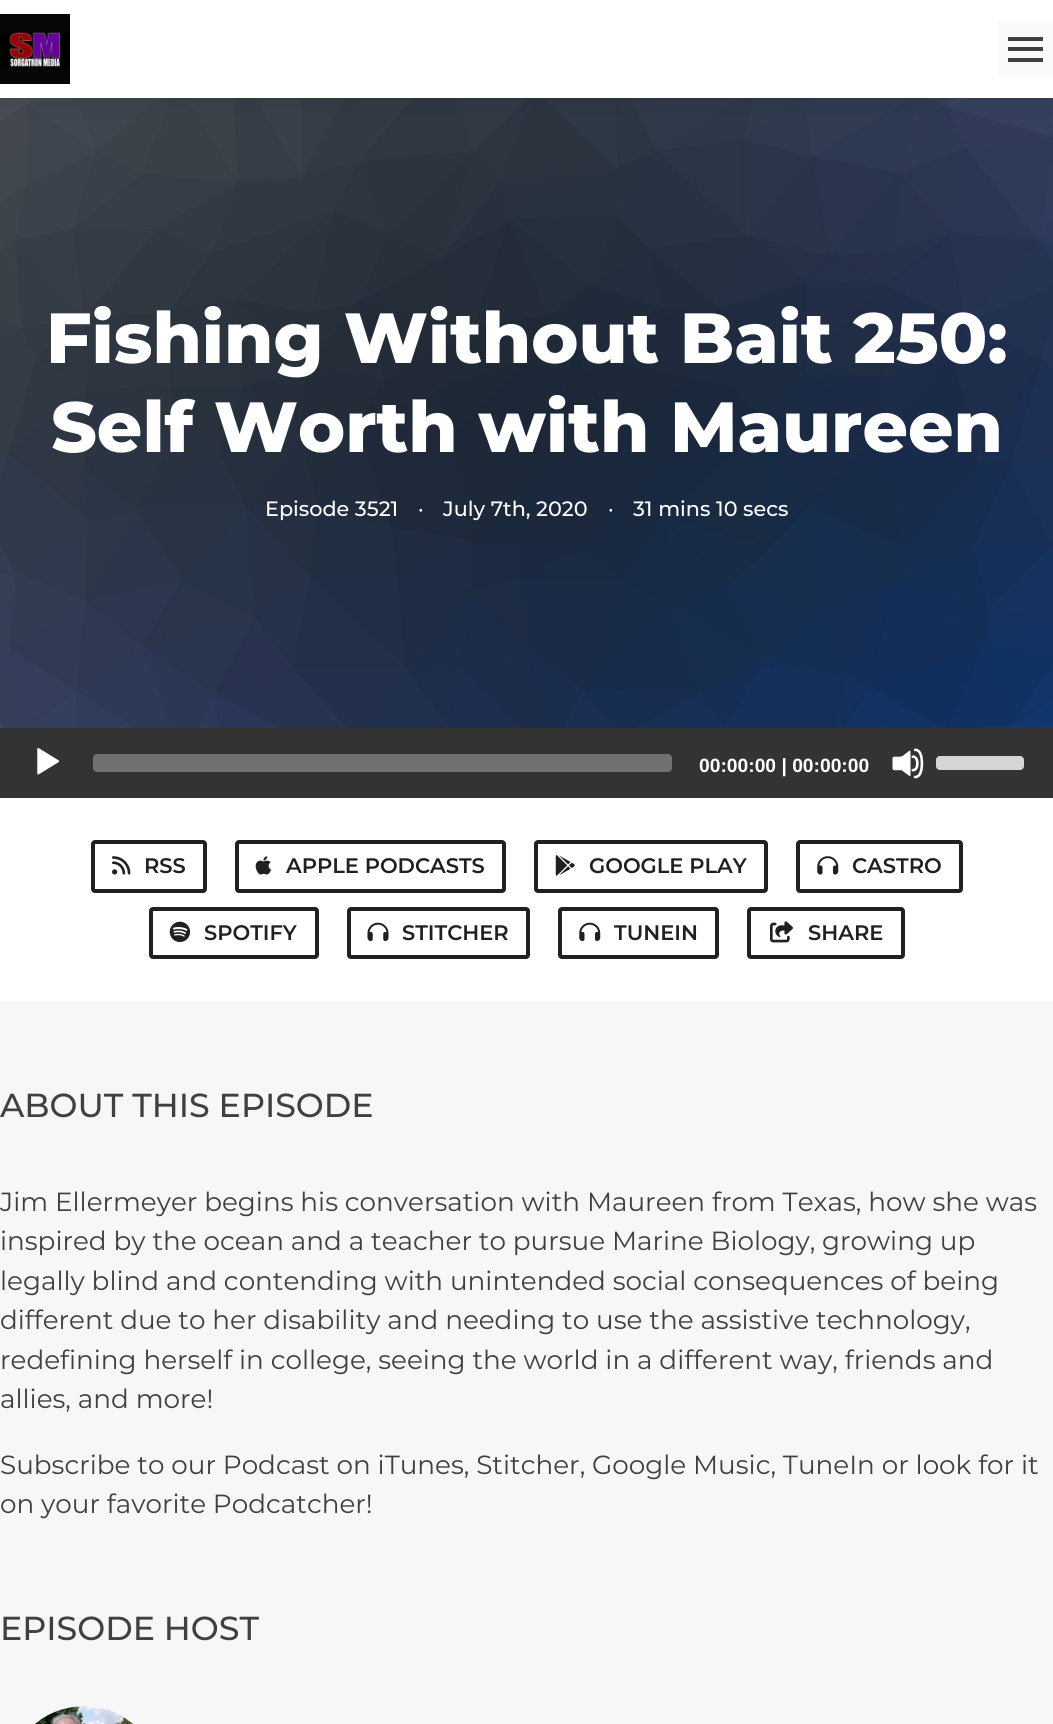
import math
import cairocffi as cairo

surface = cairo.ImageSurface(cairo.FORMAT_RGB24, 1053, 1724)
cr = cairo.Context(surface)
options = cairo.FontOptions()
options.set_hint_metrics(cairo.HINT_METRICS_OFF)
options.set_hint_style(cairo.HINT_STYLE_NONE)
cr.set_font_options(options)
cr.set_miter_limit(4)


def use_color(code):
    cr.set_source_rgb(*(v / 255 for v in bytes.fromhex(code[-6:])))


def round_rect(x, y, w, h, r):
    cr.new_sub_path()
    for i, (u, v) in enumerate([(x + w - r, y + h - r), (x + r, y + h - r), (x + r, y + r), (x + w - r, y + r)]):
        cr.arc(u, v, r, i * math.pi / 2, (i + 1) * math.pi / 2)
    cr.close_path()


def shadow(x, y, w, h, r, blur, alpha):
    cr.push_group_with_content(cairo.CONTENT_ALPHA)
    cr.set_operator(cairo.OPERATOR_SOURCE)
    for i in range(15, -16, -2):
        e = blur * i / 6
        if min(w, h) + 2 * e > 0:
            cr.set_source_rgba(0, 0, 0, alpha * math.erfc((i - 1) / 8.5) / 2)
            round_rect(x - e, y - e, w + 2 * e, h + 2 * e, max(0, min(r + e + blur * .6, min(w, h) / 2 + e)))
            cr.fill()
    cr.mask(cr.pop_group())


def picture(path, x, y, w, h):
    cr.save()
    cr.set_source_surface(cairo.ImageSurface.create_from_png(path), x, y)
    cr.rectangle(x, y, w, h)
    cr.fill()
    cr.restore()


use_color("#f7f7f7")
cr.paint()
picture("img2.png", 0, 98, 1053, 630)
use_color("#000000")
shadow(0, 0, 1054, 98, 0, 14, 0.1)
use_color("#ffffff")
cr.rectangle(0, 0, 1053, 98)
cr.fill()
picture("img1.png", 0, 14, 70, 70)
use_color("#fafafa")
cr.rectangle(998, 21, 55, 56)
cr.fill()
use_color("#404040")
cr.rectangle(1008, 37, 35, 4)
cr.fill()
cr.rectangle(1008, 47, 35, 4)
cr.fill()
cr.rectangle(1008, 58, 35, 4)
cr.fill()
cr.select_font_face("Montserrat ExtraBold")
cr.set_font_size(70.9)
use_color("#ffffff")
cr.move_to(46, 363)
cr.show_text("Fishing Without Bait 250:")
cr.move_to(51, 452)
cr.show_text("Self Worth with Maureen")
cr.select_font_face("Montserrat Medium")
cr.set_font_size(20.75)
cr.move_to(265, 516)
cr.show_text("Episode 3521")
cr.move_to(418, 516)
cr.show_text("·")
cr.move_to(443, 516)
cr.show_text("July 7th, 2020")
cr.move_to(608, 516)
cr.show_text("·")
cr.move_to(633, 516)
cr.show_text("31 mins 10 secs")
use_color("#333333")
cr.rectangle(0, 728, 1053, 70)
cr.fill()
picture("img3.png", 37, 748, 23, 27)
use_color("#707070")
round_rect(93, 754, 579, 18, 4)
cr.fill()
cr.select_font_face("Liberation Sans", cairo.FONT_SLANT_NORMAL, cairo.FONT_WEIGHT_BOLD)
cr.set_font_size(19.25)
use_color("#ffffff")
cr.move_to(699, 772)
cr.show_text("00:00:00 | 00:00:00")
picture("img4.png", 892, 748, 32, 31)
use_color("#d6d6d6")
round_rect(936, 756, 88, 14, 4)
cr.fill()
use_color("#ffffff")
cr.rectangle(0, 798, 1053, 203)
cr.fill()
round_rect(93, 842, 112, 49, 2)
use_color("#202020")
cr.set_line_width(4)
cr.stroke()
picture("img5.png", 112, 856, 19, 19)
cr.select_font_face("Montserrat SemiBold")
cr.set_font_size(21)
cr.move_to(144, 873)
cr.show_text("RSS")
round_rect(237, 842, 267, 49, 2)
cr.stroke()
picture("img6.png", 255, 856, 16, 19)
cr.move_to(286, 873)
cr.show_text("APPLE PODCASTS")
round_rect(536, 842, 230, 49, 2)
cr.stroke()
picture("img7.png", 555, 855, 20, 21)
cr.move_to(589, 873)
cr.show_text("GOOGLE PLAY")
round_rect(798, 842, 163, 49, 2)
cr.stroke()
picture("img8.png", 817, 856, 22, 19)
cr.move_to(852, 873)
cr.show_text("CASTRO")
round_rect(151, 909, 166, 48, 2)
cr.stroke()
picture("img9.png", 169, 921, 22, 21)
cr.move_to(204, 940)
cr.show_text("SPOTIFY")
round_rect(349, 909, 179, 48, 2)
cr.stroke()
picture("img10.png", 367, 922, 22, 19)
cr.move_to(402, 940)
cr.show_text("STITCHER")
round_rect(560, 909, 157, 48, 2)
cr.stroke()
picture("img11.png", 579, 922, 22, 19)
cr.move_to(614, 940)
cr.show_text("TUNEIN")
round_rect(749, 909, 154, 48, 2)
cr.stroke()
picture("img12.png", 770, 921, 23, 22)
cr.move_to(808, 940)
cr.show_text("SHARE")
cr.select_font_face("Montserrat Medium")
cr.set_font_size(33.25)
use_color("#404040")
cr.move_to(0, 1117)
cr.show_text("ABOUT THIS EPISODE")
cr.select_font_face("Montserrat")
cr.set_font_size(26.25)
cr.move_to(0, 1211)
cr.show_text("Jim Ellermeyer begins his conversation with Maureen from Texas, how she was")
cr.move_to(0, 1250)
cr.show_text("inspired by the ocean and a teacher to pursue Marine Biology, growing up")
cr.move_to(0, 1290)
cr.show_text("legally blind and contending with unintended social consequences of being")
cr.move_to(0, 1329)
cr.show_text("different due to her disability and needing to use the assistive technology,")
cr.move_to(0, 1369)
cr.show_text("redefining herself in college, seeing the world in a different way, friends and")
cr.move_to(0, 1408)
cr.show_text("allies, and more!")
cr.move_to(0, 1474)
cr.show_text("Subscribe to our Podcast on iTunes, Stitcher, Google Music, TuneIn or look for it")
cr.move_to(0, 1513)
cr.show_text("on your favorite Podcatcher!")
cr.select_font_face("Montserrat Medium")
cr.set_font_size(33.25)
cr.move_to(0, 1640)
cr.show_text("EPISODE HOST")
picture("img13.png", 35, 1706, 98, 18)
surface.write_to_png("result.png")
